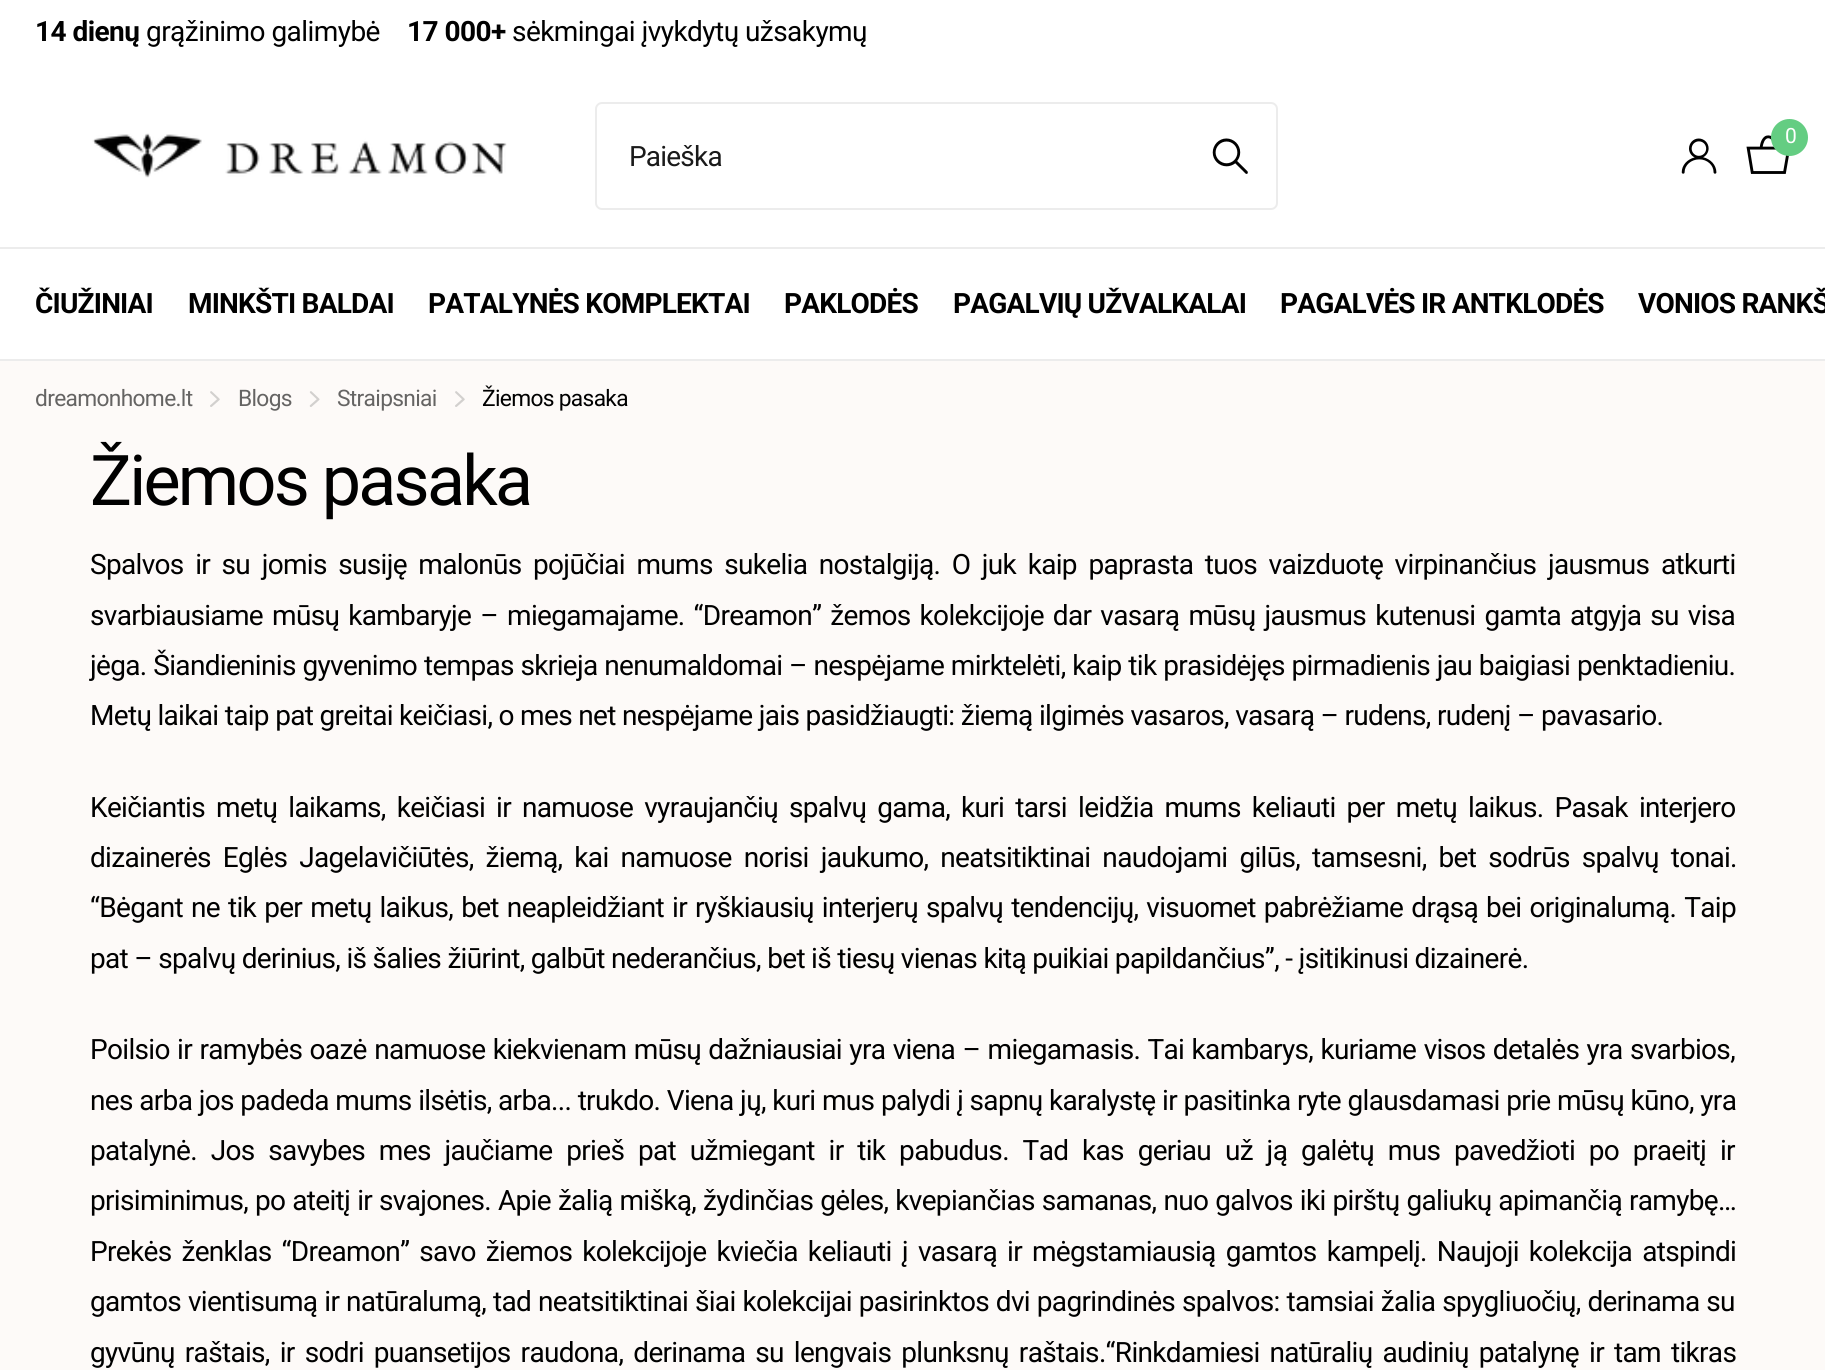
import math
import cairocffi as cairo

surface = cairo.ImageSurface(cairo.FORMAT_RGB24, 1825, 1370)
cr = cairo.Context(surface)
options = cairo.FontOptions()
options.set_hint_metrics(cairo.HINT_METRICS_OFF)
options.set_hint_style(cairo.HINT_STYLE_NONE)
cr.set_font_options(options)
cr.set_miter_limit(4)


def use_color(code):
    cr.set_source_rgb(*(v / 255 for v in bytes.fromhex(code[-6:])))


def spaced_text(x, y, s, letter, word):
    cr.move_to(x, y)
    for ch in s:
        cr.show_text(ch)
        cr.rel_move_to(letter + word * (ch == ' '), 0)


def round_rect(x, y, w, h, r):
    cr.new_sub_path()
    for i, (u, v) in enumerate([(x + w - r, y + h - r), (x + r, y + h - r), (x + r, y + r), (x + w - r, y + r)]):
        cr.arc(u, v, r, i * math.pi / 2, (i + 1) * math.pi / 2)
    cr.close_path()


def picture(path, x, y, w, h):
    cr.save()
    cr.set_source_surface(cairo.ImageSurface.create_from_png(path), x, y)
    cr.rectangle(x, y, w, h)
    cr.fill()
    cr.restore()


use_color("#fdfaf8")
cr.paint()
use_color("#ffffff")
cr.rectangle(0, 0, 1825, 359)
cr.fill()
use_color("#ececec")
cr.rectangle(0, 359, 1825, 2)
cr.fill()
cr.select_font_face("Roboto", cairo.FONT_SLANT_NORMAL, cairo.FONT_WEIGHT_BOLD)
cr.set_font_size(28)
use_color("#000000")
spaced_text(35, 41, "14 dienų", -0.55, 0)
cr.select_font_face("Roboto")
spaced_text(146, 41, "grąžinimo galimybė", -0.55, 0)
cr.select_font_face("Roboto", cairo.FONT_SLANT_NORMAL, cairo.FONT_WEIGHT_BOLD)
spaced_text(407, 41, "17 000+", -0.55, 0)
cr.select_font_face("Roboto")
spaced_text(512, 41, "sėkmingai įvykdytų užsakymų", -0.55, 0)
picture("img1.png", 92, 133, 415, 45)
round_rect(596, 103, 681, 106, 6)
use_color("#ececec")
cr.stroke()
use_color("#1a1a1a")
spaced_text(629, 166, "Paieška", -0.8, 0)
picture("img2.png", 1212, 138, 36, 36)
picture("img3.png", 1746, 135, 43, 39)
use_color("#64cd82")
cr.arc(1789.5, 137.5, 18.5, 0, 2 * math.pi)
cr.fill()
cr.set_font_size(21)
use_color("#ffffff")
spaced_text(1785, 143, "0", -1, 0)
picture("img4.png", 1681, 138, 36, 36)
use_color("#ececec")
cr.rectangle(0, 247, 1825, 2)
cr.fill()
cr.select_font_face("Roboto", cairo.FONT_SLANT_NORMAL, cairo.FONT_WEIGHT_BOLD)
cr.set_font_size(28)
use_color("#000000")
spaced_text(35, 313, "ČIUŽINIAI", -0.8, 0)
spaced_text(188, 313, "MINKŠTI BALDAI", -0.8, 0)
spaced_text(428, 313, "PATALYNĖS KOMPLEKTAI", -0.8, 0)
spaced_text(784, 313, "PAKLODĖS", -0.8, 0)
spaced_text(953, 313, "PAGALVIŲ UŽVALKALAI", -0.8, 0)
spaced_text(1280, 313, "PAGALVĖS IR ANTKLODĖS", -0.8, 0)
spaced_text(1638, 313, "VONIOS RANKŠ", -0.8, 0)
cr.select_font_face("Roboto")
cr.set_font_size(22.75)
use_color("#656463")
spaced_text(35, 406, "dreamonhome.lt", -0.68, 0)
picture("img5.png", 210, 391, 10, 16)
spaced_text(238, 406, "Blogs", -0.68, 0)
picture("img6.png", 309, 391, 11, 16)
spaced_text(337, 406, "Straipsniai", -0.68, 0)
picture("img5.png", 455, 391, 10, 16)
use_color("#000000")
spaced_text(482, 406, "Žiemos pasaka", -0.68, 0)
cr.set_font_size(70)
spaced_text(90, 505, "Žiemos pasaka", -2.75, 0)
cr.set_font_size(28)
spaced_text(90, 574, "Spalvos ir su jomis susiję malonūs pojūčiai mums sukelia nostalgiją. O juk kaip paprasta tuos vaizduotę virpinančius jausmus atkurti", -0.68, 5.25)
spaced_text(90, 625, "svarbiausiame mūsų kambaryje – miegamajame. “Dreamon” žemos kolekcijoje dar vasarą mūsų jausmus kutenusi gamta atgyja su visa", -0.68, 2.75)
spaced_text(90, 675, "jėga. Šiandieninis gyvenimo tempas skrieja nenumaldomai – nespėjame mirktelėti, kaip tik prasidėjęs pirmadienis jau baigiasi penktadieniu.", -0.68, 0.5)
spaced_text(90, 725, "Metų laikai taip pat greitai keičiasi, o mes net nespėjame jais pasidžiaugti: žiemą ilgimės vasaros, vasarą – rudens, rudenį – pavasario.", -0.68, 0)
spaced_text(90, 817, "Keičiantis metų laikams, keičiasi ir namuose vyraujančių spalvų gama, kuri tarsi leidžia mums keliauti per metų laikus. Pasak interjero", -0.68, 4.75)
spaced_text(90, 867, "dizainerės Eglės Jagelavičiūtės, žiemą, kai namuose norisi jaukumo, neatsitiktinai naudojami gilūs, tamsesni, bet sodrūs spalvų tonai.", -0.68, 5.75)
spaced_text(90, 917, "“Bėgant ne tik per metų laikus, bet neapleidžiant ir ryškiausių interjerų spalvų tendencijų, visuomet pabrėžiame drąsą bei originalumą. Taip", -0.68, 1.75)
spaced_text(90, 968, "pat – spalvų derinius, iš šalies žiūrint, galbūt nederančius, bet iš tiesų vienas kitą puikiai papildančius”, - įsitikinusi dizainerė.", -0.68, 0)
spaced_text(90, 1059, "Poilsio ir ramybės oazė namuose kiekvienam mūsų dažniausiai yra viena – miegamasis. Tai kambarys, kuriame visos detalės yra svarbios,", -0.68, 1.1)
spaced_text(90, 1110, "nes arba jos padeda mums ilsėtis, arba... trukdo. Viena jų, kuri mus palydi į sapnų karalystę ir pasitinka ryte glausdamasi prie mūsų kūno, yra", -0.68, 0.25)
spaced_text(90, 1160, "patalynė. Jos savybes mes jaučiame prieš pat užmiegant ir tik pabudus. Tad kas geriau už ją galėtų mus pavedžioti po praeitį ir", -0.68, 7.5)
spaced_text(90, 1210, "prisiminimus, po ateitį ir svajones. Apie žalią mišką, žydinčias gėles, kvepiančias samanas, nuo galvos iki pirštų galiukų apimančią ramybę…", -0.68, 0.7)
spaced_text(90, 1261, "Prekės ženklas “Dreamon” savo žiemos kolekcijoje kviečia keliauti į vasarą ir mėgstamiausią gamtos kampelį. Naujoji kolekcija atspindi", -0.68, 3.75)
spaced_text(90, 1311, "gamtos vientisumą ir natūralumą, tad neatsitiktinai šiai kolekcijai pasirinktos dvi pagrindinės spalvos: tamsiai žalia spygliuočių, derinama su", -0.68, 0.6)
spaced_text(90, 1362, "gyvūnų raštais, ir sodri puansetijos raudona, derinama su lengvais plunksnų raštais.“Rinkdamiesi natūralių audinių patalynę ir tam tikras", -0.68, 3.75)
surface.write_to_png("result.png")
